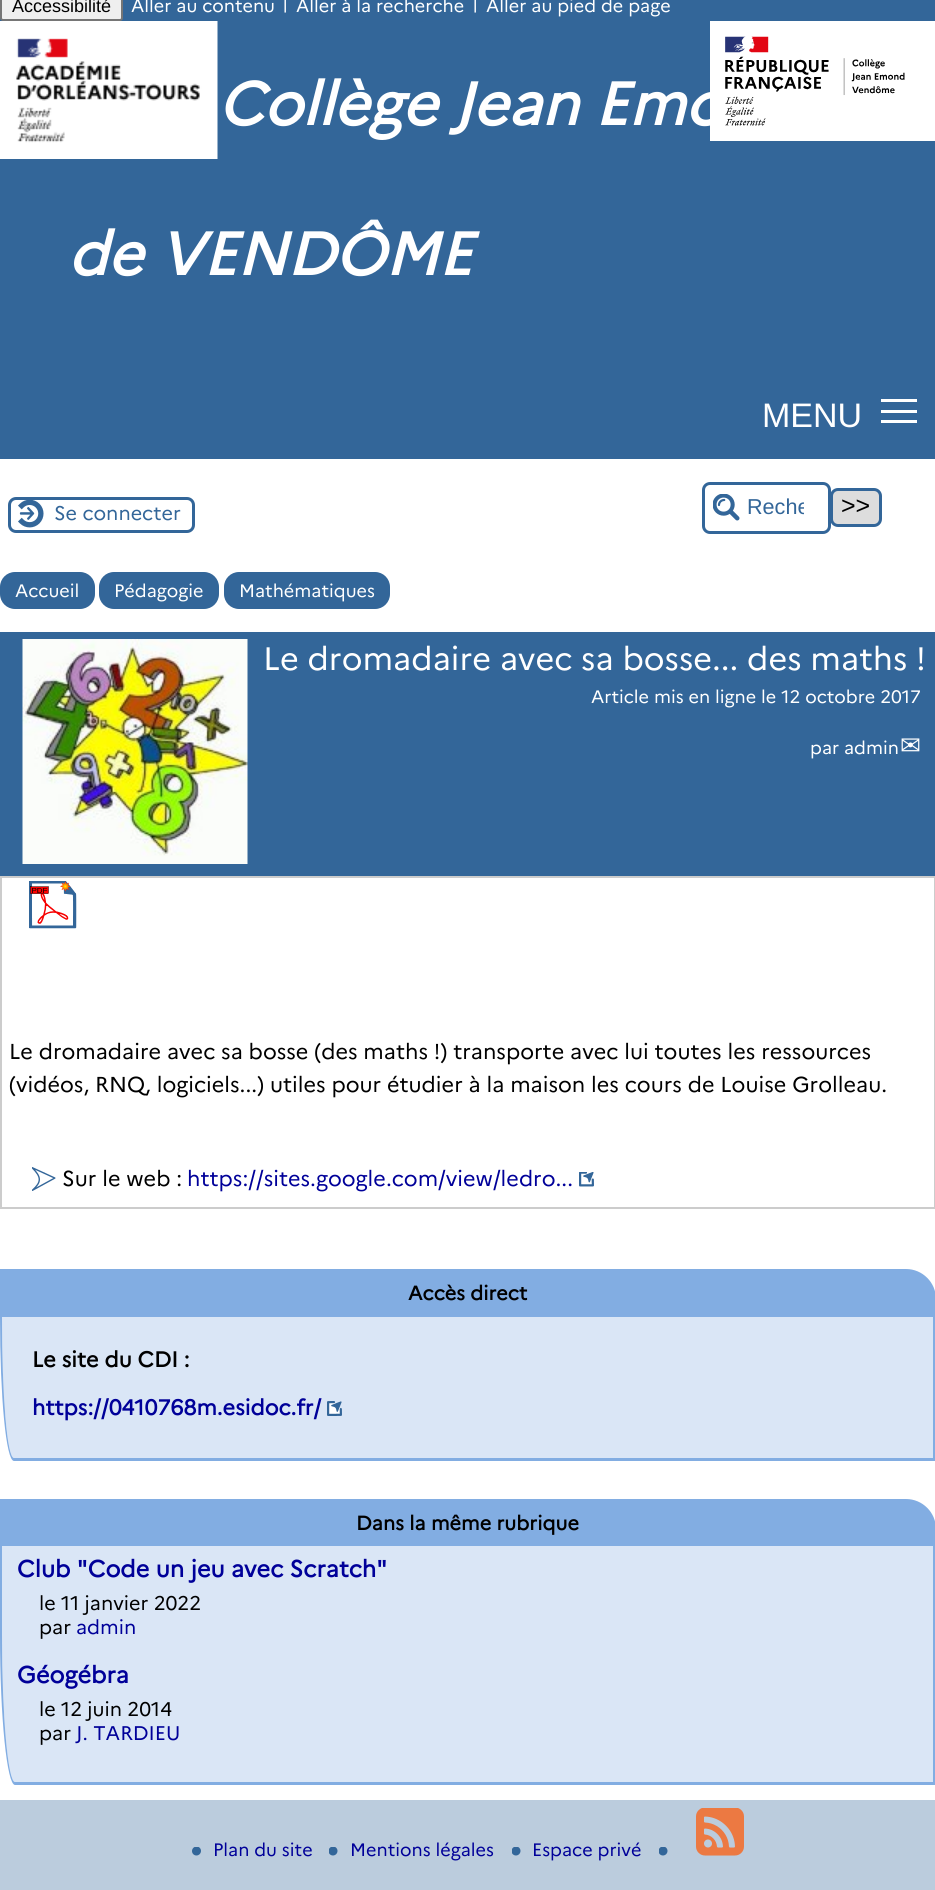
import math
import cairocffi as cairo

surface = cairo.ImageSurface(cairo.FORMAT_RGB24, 935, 1890)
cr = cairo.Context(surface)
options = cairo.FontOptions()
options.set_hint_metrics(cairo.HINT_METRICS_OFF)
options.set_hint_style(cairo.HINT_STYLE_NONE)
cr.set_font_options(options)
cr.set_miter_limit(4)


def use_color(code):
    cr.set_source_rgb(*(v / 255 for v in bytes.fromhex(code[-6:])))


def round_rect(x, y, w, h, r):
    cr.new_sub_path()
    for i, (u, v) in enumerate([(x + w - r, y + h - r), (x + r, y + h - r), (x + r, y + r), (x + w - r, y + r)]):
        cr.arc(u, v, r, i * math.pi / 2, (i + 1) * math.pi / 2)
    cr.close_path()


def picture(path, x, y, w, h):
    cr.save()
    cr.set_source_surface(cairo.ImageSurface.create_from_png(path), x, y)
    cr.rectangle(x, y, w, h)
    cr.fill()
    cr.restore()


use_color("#ffffff")
cr.paint()
use_color("#336699")
cr.rectangle(0, 0, 935, 459)
cr.fill()
use_color("#efefef")
round_rect(1, -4, 121, 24, 2)
cr.fill_preserve()
use_color("#767676")
cr.stroke()
cr.select_font_face("Liberation Sans")
cr.set_font_size(18)
use_color("#000000")
cr.move_to(12, 12)
cr.show_text("Accessibilité")
cr.select_font_face("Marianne")
use_color("#ffffff")
cr.move_to(131, 12)
cr.show_text("Aller au contenu")
cr.move_to(282, 9)
cr.show_text("|")
cr.move_to(296, 12)
cr.show_text("Aller à la recherche")
cr.move_to(472, 9)
cr.show_text("|")
cr.move_to(486, 12)
cr.show_text("Aller au pied de page")
picture("img1.png", 0, 21, 218, 138)
cr.select_font_face("Marianne", cairo.FONT_SLANT_ITALIC, cairo.FONT_WEIGHT_BOLD)
cr.set_font_size(60)
cr.move_to(218, 125)
cr.show_text("Collège Jean Emo")
picture("img2.png", 710, 21, 225, 120)
cr.move_to(68, 275)
cr.show_text("de VENDÔME")
cr.select_font_face("Liberation Sans")
cr.set_font_size(34)
cr.move_to(762, 427)
cr.show_text("MENU")
cr.rectangle(881, 410, 36, 3)
cr.fill()
cr.rectangle(881, 399, 36, 3)
cr.fill()
cr.rectangle(881, 420, 36, 3)
cr.fill()
picture("img3.png", 18, 500, 26, 28)
round_rect(9.5, 498.5, 184, 33, 6.5)
use_color("#336699")
cr.set_line_width(3)
cr.stroke()
cr.select_font_face("Marianne")
cr.set_font_size(19.75)
cr.move_to(54, 520)
cr.show_text("Se connecter")
picture("img4.png", 713, 494, 27, 27)
round_rect(703.5, 483.5, 126, 49, 6.5)
cr.stroke()
cr.save()
cr.rectangle(747, 486, 57, 44)
cr.clip()
cr.select_font_face("Liberation Sans")
cr.set_font_size(21.6)
cr.move_to(747, 514)
cr.show_text("Reche")
cr.restore()
use_color("#dddddd")
round_rect(831.5, 489.5, 49, 36, 6.5)
cr.fill_preserve()
use_color("#336699")
cr.stroke()
cr.select_font_face("Liberation Sans")
cr.set_font_size(25)
use_color("#000000")
cr.move_to(841, 514)
cr.show_text(">>")
use_color("#336699")
round_rect(0, 572, 95, 37, 15)
cr.fill()
cr.select_font_face("Marianne")
cr.set_font_size(18)
use_color("#ffffff")
cr.move_to(15, 597)
cr.show_text("Accueil")
use_color("#336699")
round_rect(99, 572, 120, 37, 15)
cr.fill()
use_color("#ffffff")
cr.move_to(114, 597)
cr.show_text("Pédagogie")
use_color("#336699")
round_rect(224, 572, 166, 37, 15)
cr.fill()
use_color("#ffffff")
cr.move_to(239, 597)
cr.show_text("Mathématiques")
use_color("#336699")
cr.rectangle(0, 632, 935, 244)
cr.fill()
picture("img5.png", 22, 639, 226, 225)
cr.set_font_size(32.4)
use_color("#ffffff")
cr.move_to(263, 670)
cr.show_text("Le dromadaire avec sa bosse... des maths !")
cr.set_font_size(18)
cr.move_to(591, 703)
cr.show_text("Article mis en ligne le 12 octobre 2017")
cr.move_to(810, 754)
cr.show_text("par admin")
cr.select_font_face("DejaVu Sans")
cr.set_font_size(25)
cr.move_to(900, 754)
cr.show_text("✉")
cr.rectangle(1, 877, 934, 331)
use_color("#cccccc")
cr.set_line_width(2)
cr.stroke()
picture("img6.png", 29, 881, 48, 48)
cr.select_font_face("Marianne")
cr.set_font_size(21.6)
use_color("#000000")
cr.move_to(9, 1059)
cr.show_text("Le dromadaire avec sa bosse (des maths !) transporte avec lui toutes les ressources")
cr.move_to(9, 1092)
cr.show_text("(vidéos, RNQ, logiciels...) utiles pour étudier à la maison les cours de Louise Grolleau.")
picture("img7.png", 32, 1167, 24, 24)
cr.move_to(62, 1186)
cr.show_text("Sur le web :")
use_color("#000099")
cr.move_to(187, 1186)
cr.show_text("https://sites.google.com/view/ledro...")
picture("img8.png", 579, 1172, 15, 15)
use_color("#82ade2")
cr.new_path()
cr.move_to(0, 1269)
cr.line_to(906, 1269)
cr.curve_to(922.5, 1269, 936, 1282.5, 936, 1299)
cr.line_to(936, 1317)
cr.line_to(0, 1317)
cr.close_path()
cr.fill()
cr.select_font_face("Marianne", cairo.FONT_SLANT_NORMAL, cairo.FONT_WEIGHT_BOLD)
cr.set_font_size(19.75)
use_color("#000000")
cr.move_to(408, 1300)
cr.show_text("Accès direct")
use_color("#dae6f6")
cr.new_path()
cr.move_to(2, 1317)
cr.line_to(933, 1317)
cr.line_to(933, 1458)
cr.line_to(14, 1458)
cr.curve_to(7, 1458, 2, 1395, 2, 1317)
cr.close_path()
cr.fill()
use_color("#82ade2")
cr.set_fill_rule(cairo.FILL_RULE_EVEN_ODD)
cr.new_path()
cr.move_to(0, 1317)
cr.line_to(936, 1317)
cr.line_to(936, 1461)
cr.line_to(14, 1461)
cr.curve_to(6, 1461, 0, 1397, 0, 1317)
cr.close_path()
cr.move_to(2, 1317)
cr.line_to(933, 1317)
cr.line_to(933, 1458)
cr.line_to(14, 1458)
cr.curve_to(7, 1458, 2, 1395, 2, 1317)
cr.close_path()
cr.fill()
cr.set_font_size(21.6)
use_color("#000000")
cr.move_to(32, 1367)
cr.show_text("Le site du CDI :")
use_color("#000099")
cr.move_to(32, 1415)
cr.show_text("https://0410768m.esidoc.fr/")
picture("img9.png", 327, 1401, 15, 15)
use_color("#82ade2")
cr.new_path()
cr.move_to(0, 1499)
cr.line_to(906, 1499)
cr.curve_to(922.5, 1499, 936, 1512.5, 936, 1529)
cr.line_to(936, 1547)
cr.line_to(0, 1547)
cr.close_path()
cr.fill()
cr.set_font_size(19.75)
use_color("#000000")
cr.move_to(356, 1530)
cr.show_text("Dans la même rubrique")
use_color("#dae6f6")
cr.set_fill_rule(cairo.FILL_RULE_WINDING)
cr.new_path()
cr.move_to(2, 1546)
cr.line_to(933, 1546)
cr.line_to(933, 1782)
cr.line_to(15, 1782)
cr.curve_to(8, 1782, 2, 1716, 2, 1635)
cr.close_path()
cr.fill()
use_color("#82ade2")
cr.set_fill_rule(cairo.FILL_RULE_EVEN_ODD)
cr.new_path()
cr.move_to(0, 1546)
cr.line_to(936, 1546)
cr.line_to(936, 1785)
cr.line_to(15, 1785)
cr.curve_to(7, 1785, 0, 1718, 0, 1635)
cr.close_path()
cr.move_to(2, 1546)
cr.line_to(933, 1546)
cr.line_to(933, 1782)
cr.line_to(15, 1782)
cr.curve_to(8, 1782, 2, 1716, 2, 1635)
cr.close_path()
cr.fill()
cr.set_font_size(23.4)
use_color("#000099")
cr.move_to(17, 1577)
cr.show_text("Club \"Code un jeu avec Scratch\"")
cr.select_font_face("Marianne")
cr.set_font_size(19.75)
use_color("#000000")
cr.move_to(39, 1610)
cr.show_text("le 11 janvier 2022")
cr.move_to(39, 1634)
cr.show_text("par")
use_color("#000099")
cr.move_to(76, 1634)
cr.show_text("admin")
cr.select_font_face("Marianne", cairo.FONT_SLANT_NORMAL, cairo.FONT_WEIGHT_BOLD)
cr.set_font_size(23.4)
cr.move_to(17, 1683)
cr.show_text("Géogébra")
cr.select_font_face("Marianne")
cr.set_font_size(19.75)
use_color("#000000")
cr.move_to(39, 1716)
cr.show_text("le 12 juin 2014")
cr.move_to(39, 1740)
cr.show_text("par")
use_color("#000099")
cr.move_to(76, 1740)
cr.show_text("J. TARDIEU")
use_color("#bbccdd")
cr.rectangle(0, 1800, 935, 90)
cr.fill()
picture("img10.png", 192, 1847, 9, 9)
cr.set_font_size(18)
use_color("#000099")
cr.move_to(213, 1856)
cr.show_text("Plan du site")
picture("img11.png", 329, 1847, 9, 9)
cr.move_to(350, 1856)
cr.show_text("Mentions légales")
picture("img11.png", 512, 1847, 9, 9)
cr.move_to(532, 1856)
cr.show_text("Espace privé")
picture("img11.png", 659, 1847, 9, 9)
picture("img12.png", 696, 1808, 48, 48)
surface.write_to_png("result.png")
